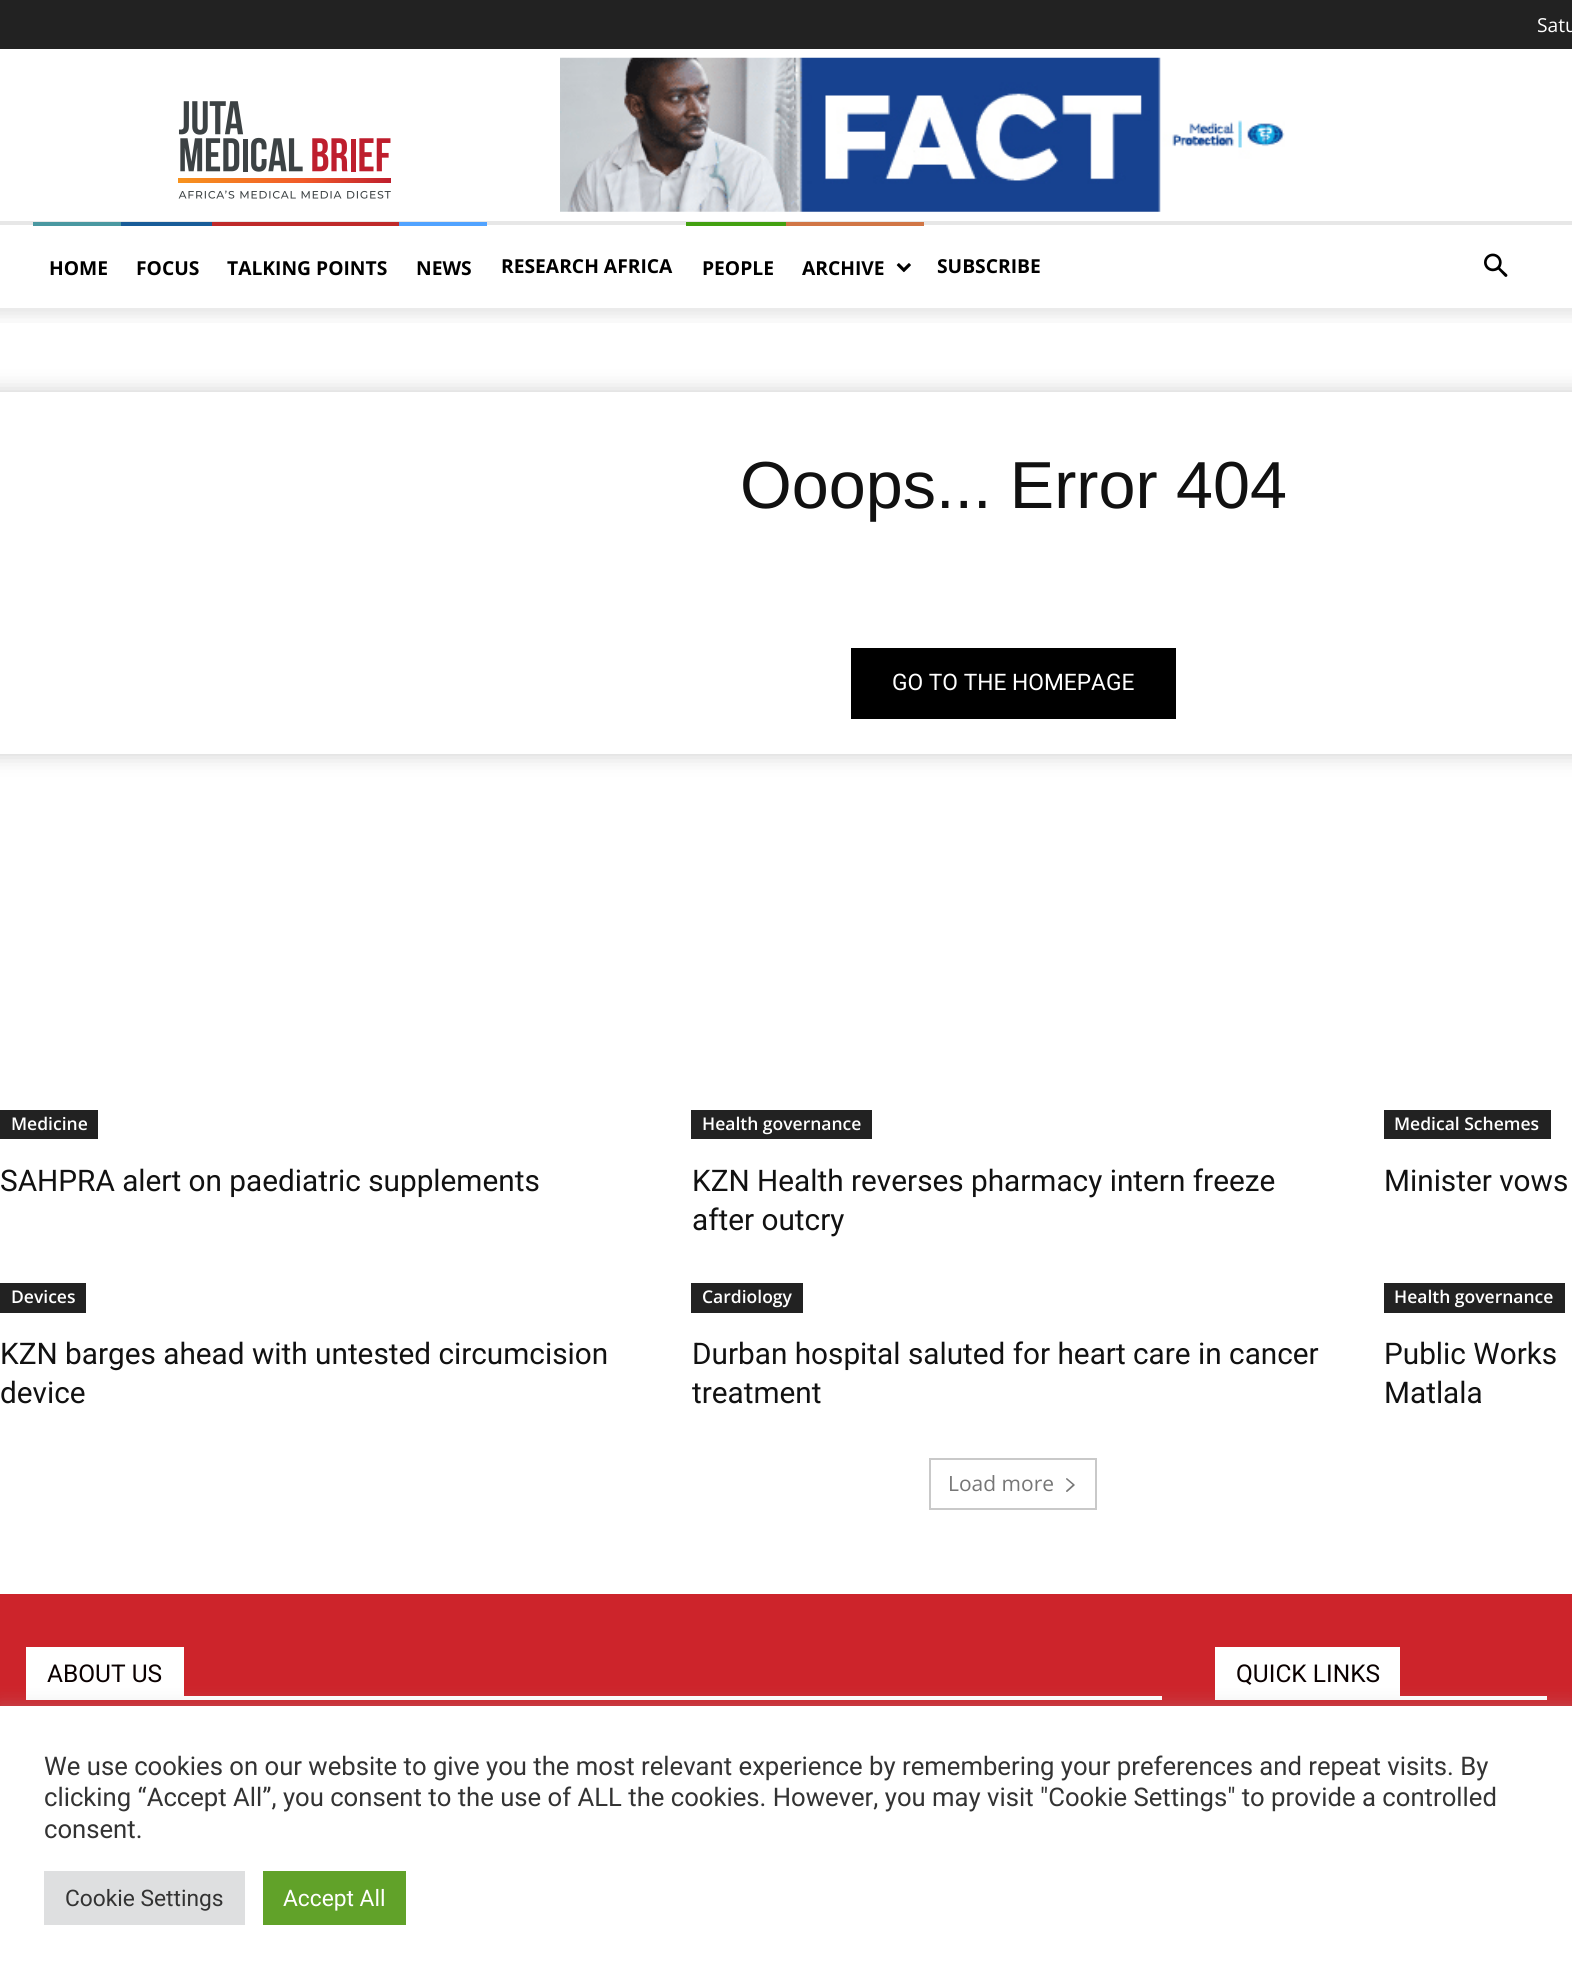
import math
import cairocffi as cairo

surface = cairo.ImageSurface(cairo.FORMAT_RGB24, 1572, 1976)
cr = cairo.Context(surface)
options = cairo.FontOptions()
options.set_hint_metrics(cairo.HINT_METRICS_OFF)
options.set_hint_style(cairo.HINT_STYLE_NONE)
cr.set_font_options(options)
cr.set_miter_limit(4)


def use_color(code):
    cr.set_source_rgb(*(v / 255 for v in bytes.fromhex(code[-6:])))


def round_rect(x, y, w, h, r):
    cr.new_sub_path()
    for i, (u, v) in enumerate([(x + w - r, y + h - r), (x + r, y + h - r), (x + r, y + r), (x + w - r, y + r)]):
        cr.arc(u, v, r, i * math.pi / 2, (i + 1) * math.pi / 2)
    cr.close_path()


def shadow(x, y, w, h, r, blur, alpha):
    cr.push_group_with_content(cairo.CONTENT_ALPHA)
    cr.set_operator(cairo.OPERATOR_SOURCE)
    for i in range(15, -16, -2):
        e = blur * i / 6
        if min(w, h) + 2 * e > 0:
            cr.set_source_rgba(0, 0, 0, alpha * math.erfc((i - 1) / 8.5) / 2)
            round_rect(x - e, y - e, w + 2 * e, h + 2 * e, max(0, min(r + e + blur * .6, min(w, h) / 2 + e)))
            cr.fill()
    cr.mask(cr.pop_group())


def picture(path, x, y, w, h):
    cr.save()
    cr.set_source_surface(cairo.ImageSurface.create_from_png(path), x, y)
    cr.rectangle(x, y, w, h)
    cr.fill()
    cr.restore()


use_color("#ffffff")
cr.paint()
use_color("#222222")
cr.rectangle(0, 0, 1572, 49)
cr.fill()
cr.select_font_face("Open Sans")
cr.set_font_size(19.25)
use_color("#ffffff")
cr.move_to(1537, 32)
cr.show_text("Satu")
picture("img1.png", 178, 101, 213, 98)
picture("img2.png", 560, 57, 725, 155)
use_color("#e7e7e7")
cr.rectangle(0, 221, 1572, 4)
cr.fill()
use_color("#4a98a1")
cr.rectangle(33, 222, 91, 4)
cr.fill()
cr.select_font_face("Open Sans", cairo.FONT_SLANT_NORMAL, cairo.FONT_WEIGHT_BOLD)
use_color("#000000")
cr.move_to(49, 275)
cr.show_text("HOME")
use_color("#185c98")
cr.rectangle(121, 222, 94, 4)
cr.fill()
use_color("#000000")
cr.move_to(136, 275)
cr.show_text("FOCUS")
use_color("#bf2a2a")
cr.rectangle(212, 222, 191, 4)
cr.fill()
use_color("#000000")
cr.move_to(227, 275)
cr.show_text("TALKING POINTS")
use_color("#51a3ff")
cr.rectangle(399, 222, 88, 4)
cr.fill()
use_color("#000000")
cr.move_to(416, 275)
cr.show_text("NEWS")
cr.move_to(501, 273)
cr.show_text("RESEARCH AFRICA")
use_color("#43a011")
cr.rectangle(686, 222, 103, 4)
cr.fill()
use_color("#000000")
cr.move_to(702, 275)
cr.show_text("PEOPLE")
use_color("#d17646")
cr.rectangle(786, 222, 138, 4)
cr.fill()
use_color("#000000")
cr.move_to(802, 275)
cr.show_text("ARCHIVE")
picture("img3.png", 896, 263, 15, 10)
cr.move_to(937, 273)
cr.show_text("SUBSCRIBE")
picture("img4.png", 1484, 253, 24, 24)
picture("img5.png", 0, 308, 1572, 15)
cr.save()
cr.set_fill_rule(cairo.FILL_RULE_EVEN_ODD)
cr.new_path()
cr.move_to(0, 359)
cr.line_to(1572, 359)
cr.line_to(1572, 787)
cr.line_to(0, 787)
cr.close_path()
cr.move_to(-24, 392)
cr.line_to(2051, 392)
cr.line_to(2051, 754)
cr.line_to(-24, 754)
cr.close_path()
cr.clip()
use_color("#cccccc")
shadow(-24, 392, 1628, 362, 0, 10.5, 1)
cr.restore()
cr.select_font_face("Liberation Sans")
cr.set_font_size(66.5)
use_color("#111111")
cr.move_to(740, 508)
cr.show_text("Ooops... Error 404")
use_color("#000000")
cr.rectangle(851, 648, 325, 71)
cr.fill()
cr.select_font_face("Roboto")
cr.set_font_size(22.75)
use_color("#ffffff")
cr.move_to(892, 690)
cr.show_text("GO TO THE HOMEPAGE")
use_color("#222222")
cr.rectangle(0, 1110, 98, 29)
cr.fill()
cr.select_font_face("Open Sans SemiBold")
cr.set_font_size(17.5)
use_color("#ffffff")
cr.move_to(11, 1130)
cr.show_text("Medicine")
cr.select_font_face("Roboto")
cr.set_font_size(29.75)
use_color("#111111")
cr.move_to(0, 1191)
cr.show_text("SAHPRA alert on paediatric supplements")
use_color("#222222")
cr.rectangle(691, 1110, 181, 29)
cr.fill()
cr.select_font_face("Open Sans SemiBold")
cr.set_font_size(17.5)
use_color("#ffffff")
cr.move_to(702, 1130)
cr.show_text("Health governance")
cr.select_font_face("Roboto")
cr.set_font_size(29.75)
use_color("#111111")
cr.move_to(692, 1191)
cr.show_text("KZN Health reverses pharmacy intern freeze")
cr.move_to(692, 1230)
cr.show_text("after outcry")
use_color("#222222")
cr.rectangle(1384, 1110, 167, 29)
cr.fill()
cr.select_font_face("Open Sans SemiBold")
cr.set_font_size(17.5)
use_color("#ffffff")
cr.move_to(1394, 1130)
cr.show_text("Medical Schemes")
cr.select_font_face("Roboto")
cr.set_font_size(29.75)
use_color("#111111")
cr.move_to(1384, 1191)
cr.show_text("Minister vows")
use_color("#222222")
cr.rectangle(0, 1283, 86, 30)
cr.fill()
cr.select_font_face("Open Sans SemiBold")
cr.set_font_size(17.5)
use_color("#ffffff")
cr.move_to(11, 1303)
cr.show_text("Devices")
cr.select_font_face("Roboto")
cr.set_font_size(29.75)
use_color("#111111")
cr.move_to(0, 1364)
cr.show_text("KZN barges ahead with untested circumcision")
cr.move_to(0, 1403)
cr.show_text("device")
use_color("#222222")
cr.rectangle(691, 1283, 112, 30)
cr.fill()
cr.select_font_face("Open Sans SemiBold")
cr.set_font_size(17.5)
use_color("#ffffff")
cr.move_to(702, 1303)
cr.show_text("Cardiology")
cr.select_font_face("Roboto")
cr.set_font_size(29.75)
use_color("#111111")
cr.move_to(692, 1364)
cr.show_text("Durban hospital saluted for heart care in cancer")
cr.move_to(692, 1403)
cr.show_text("treatment")
use_color("#222222")
cr.rectangle(1384, 1283, 181, 30)
cr.fill()
cr.select_font_face("Open Sans SemiBold")
cr.set_font_size(17.5)
use_color("#ffffff")
cr.move_to(1394, 1303)
cr.show_text("Health governance")
cr.select_font_face("Roboto")
cr.set_font_size(29.75)
use_color("#111111")
cr.move_to(1384, 1364)
cr.show_text("Public Works")
cr.move_to(1384, 1403)
cr.show_text("Matlala")
cr.rectangle(930, 1459, 166, 50)
use_color("#c9c9c9")
cr.stroke()
cr.select_font_face("Open Sans")
cr.set_font_size(21)
use_color("#767676")
cr.move_to(948, 1491)
cr.show_text("Load more")
picture("img6.png", 1066, 1478, 9, 14)
use_color("#cd242b")
cr.rectangle(0, 1594, 1572, 112)
cr.fill()
use_color("#ffffff")
cr.rectangle(26, 1696, 1136, 4)
cr.fill()
cr.rectangle(26, 1647, 158, 49)
cr.fill()
cr.select_font_face("Roboto")
cr.set_font_size(24.5)
use_color("#0a0000")
cr.move_to(47, 1682)
cr.show_text("ABOUT US")
use_color("#ffffff")
cr.rectangle(1215, 1696, 332, 4)
cr.fill()
cr.rectangle(1215, 1647, 185, 49)
cr.fill()
use_color("#0a0000")
cr.move_to(1236, 1682)
cr.show_text("QUICK LINKS")
use_color("#acabab")
shadow(0, 1705, 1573, 271, 0, 9, 0.3)
use_color("#ffffff")
cr.rectangle(0, 1706, 1572, 270)
cr.fill()
cr.set_font_size(25.67)
use_color("#333333")
cr.move_to(44, 1775)
cr.show_text("We use cookies on our website to give you the most relevant experience by remembering your preferences and repeat visits. By")
cr.move_to(44, 1806)
cr.show_text("clicking “Accept All”, you consent to the use of ALL the cookies. However, you may visit \"Cookie Settings\" to provide a controlled")
cr.move_to(44, 1838)
cr.show_text("consent.")
use_color("#dedfe0")
cr.rectangle(44, 1871, 201, 54)
cr.fill()
cr.set_font_size(22.75)
use_color("#333333")
cr.move_to(65, 1906)
cr.show_text("Cookie Settings")
use_color("#61a229")
cr.rectangle(263, 1871, 143, 54)
cr.fill()
use_color("#ffffff")
cr.move_to(283, 1906)
cr.show_text("Accept All")
surface.write_to_png("result.png")
